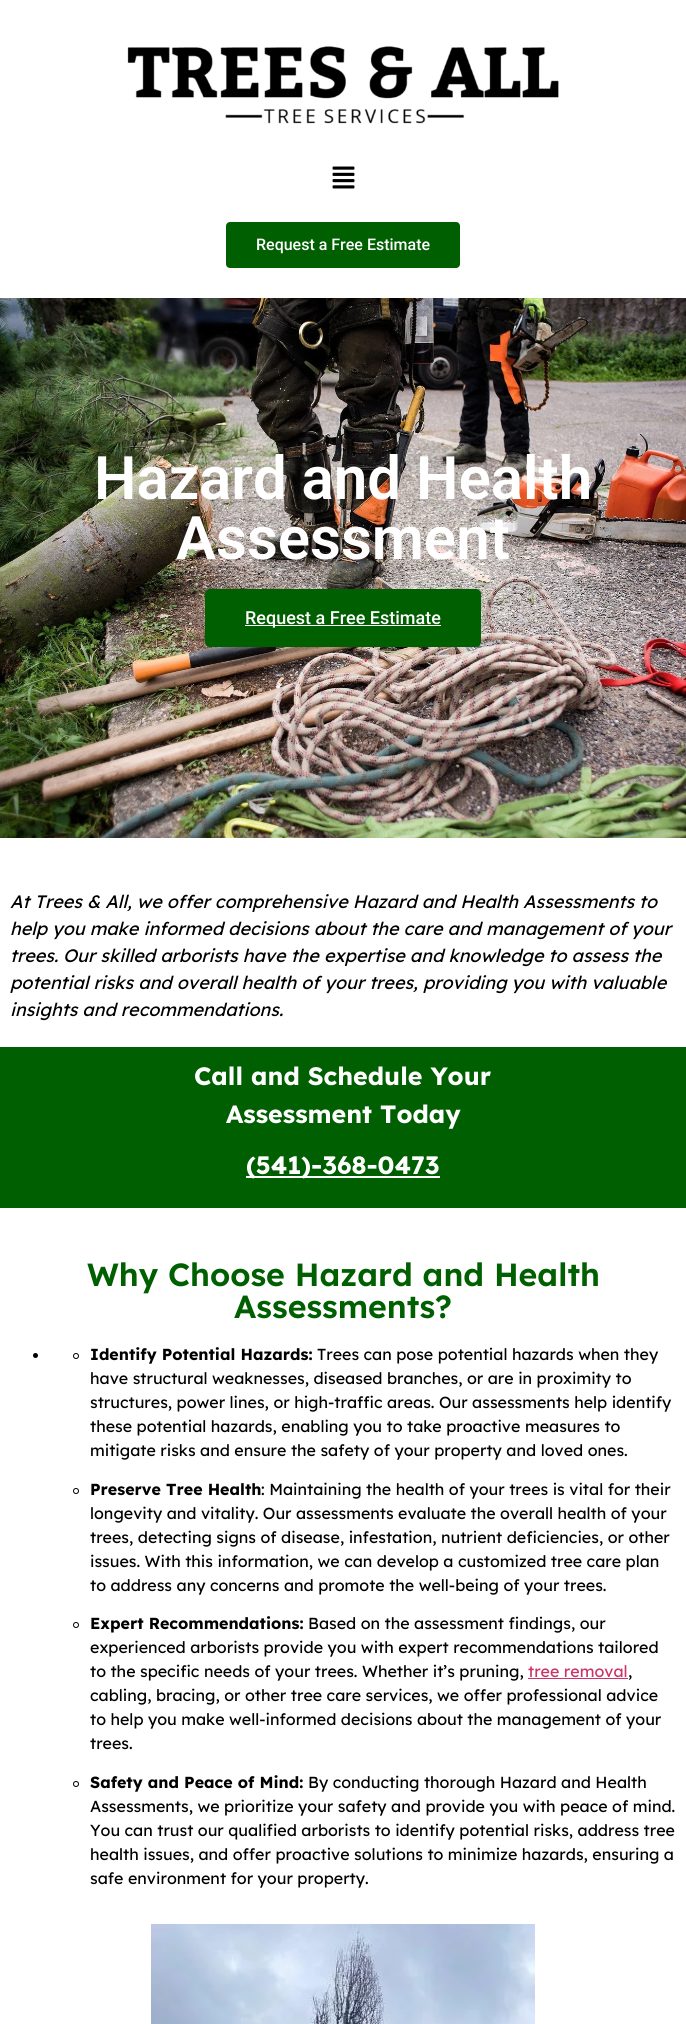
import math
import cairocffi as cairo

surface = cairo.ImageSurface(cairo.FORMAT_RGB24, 686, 2024)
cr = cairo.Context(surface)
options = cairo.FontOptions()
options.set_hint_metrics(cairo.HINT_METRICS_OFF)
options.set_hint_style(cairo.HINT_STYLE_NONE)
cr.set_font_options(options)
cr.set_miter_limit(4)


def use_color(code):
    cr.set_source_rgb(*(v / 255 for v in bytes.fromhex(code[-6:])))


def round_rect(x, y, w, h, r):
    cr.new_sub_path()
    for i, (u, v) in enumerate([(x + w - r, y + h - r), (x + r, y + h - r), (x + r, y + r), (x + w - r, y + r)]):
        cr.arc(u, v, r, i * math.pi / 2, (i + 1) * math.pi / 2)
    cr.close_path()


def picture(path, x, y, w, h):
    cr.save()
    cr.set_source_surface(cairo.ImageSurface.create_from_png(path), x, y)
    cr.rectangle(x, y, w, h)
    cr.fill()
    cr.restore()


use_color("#ffffff")
cr.paint()
picture("img1.png", 127, 46, 432, 78)
picture("img2.png", 332, 166, 23, 23)
use_color("#005f00")
round_rect(226, 222, 234, 46, 4)
cr.fill()
cr.select_font_face("Roboto Medium")
cr.set_font_size(16)
use_color("#ffffff")
cr.move_to(256, 250)
cr.show_text("Request a Free Estimate")
picture("img3.png", 0, 298, 686, 540)
cr.select_font_face("Roboto SemiBold")
cr.set_font_size(60)
cr.move_to(94, 499)
cr.show_text("Hazard and Health")
cr.move_to(176, 559)
cr.show_text("Assessment")
use_color("#005f00")
round_rect(205, 589, 276, 58, 5)
cr.fill()
use_color("#ffffff")
cr.rectangle(245, 625, 196, 1)
cr.fill()
cr.select_font_face("Roboto Medium")
cr.set_font_size(18)
cr.move_to(245, 624)
cr.show_text("Request a Free Estimate")
cr.select_font_face("Lexend", cairo.FONT_SLANT_ITALIC)
use_color("#000000")
cr.move_to(10, 908)
cr.show_text("At Trees & All, we offer comprehensive Hazard and Health Assessments to")
cr.move_to(10, 935)
cr.show_text("help you make informed decisions about the care and management of your")
cr.move_to(10, 962)
cr.show_text("trees. Our skilled arborists have the expertise and knowledge to assess the")
cr.move_to(10, 989)
cr.show_text("potential risks and overall health of your trees, providing you with valuable")
cr.move_to(10, 1016)
cr.show_text("insights and recommendations.")
use_color("#005f00")
cr.rectangle(0, 1047, 686, 161)
cr.fill()
cr.select_font_face("Lexend", cairo.FONT_SLANT_NORMAL, cairo.FONT_WEIGHT_BOLD)
cr.set_font_size(25)
use_color("#ffffff")
cr.move_to(194, 1085)
cr.show_text("Call and Schedule Your")
cr.move_to(226, 1123)
cr.show_text("Assessment Today")
cr.rectangle(246, 1176, 194, 2)
cr.fill()
cr.move_to(246, 1174)
cr.show_text("(541)-368-0473")
cr.select_font_face("Lexend SemiBold")
cr.set_font_size(32)
use_color("#005f00")
cr.move_to(87, 1286)
cr.show_text("Why Choose Hazard and Health")
cr.move_to(234, 1318)
cr.show_text("Assessments?")
use_color("#000000")
cr.new_path()
cr.arc(35.5, 1355.5, 2.5, 0, 2 * math.pi)
cr.fill()
cr.arc(76, 1356, 2.5, 0, 2 * math.pi)
cr.set_line_width(1)
cr.stroke()
cr.select_font_face("Lexend", cairo.FONT_SLANT_NORMAL, cairo.FONT_WEIGHT_BOLD)
cr.set_font_size(16)
cr.move_to(90, 1360)
cr.show_text("Identify Potential Hazards:")
cr.select_font_face("Lexend")
cr.move_to(317, 1360)
cr.show_text("Trees can pose potential hazards when they")
cr.move_to(90, 1384)
cr.show_text("have structural weaknesses, diseased branches, or are in proximity to")
cr.move_to(90, 1408)
cr.show_text("structures, power lines, or high-traffic areas. Our assessments help identify")
cr.move_to(90, 1432)
cr.show_text("these potential hazards, enabling you to take proactive measures to")
cr.move_to(90, 1456)
cr.show_text("mitigate risks and ensure the safety of your property and loved ones.")
cr.new_path()
cr.arc(76, 1491, 2.5, 0, 2 * math.pi)
cr.stroke()
cr.select_font_face("Lexend", cairo.FONT_SLANT_NORMAL, cairo.FONT_WEIGHT_BOLD)
cr.move_to(90, 1495)
cr.show_text("Preserve Tree Health")
cr.select_font_face("Lexend")
cr.move_to(261, 1495)
cr.show_text(": Maintaining the health of your trees is vital for their")
cr.move_to(90, 1519)
cr.show_text("longevity and vitality. Our assessments evaluate the overall health of your")
cr.move_to(90, 1543)
cr.show_text("trees, detecting signs of disease, infestation, nutrient deficiencies, or other")
cr.move_to(90, 1567)
cr.show_text("issues. With this information, we can develop a customized tree care plan")
cr.move_to(90, 1591)
cr.show_text("to address any concerns and promote the well-being of your trees.")
cr.new_path()
cr.arc(76, 1625, 2.5, 0, 2 * math.pi)
cr.stroke()
cr.select_font_face("Lexend", cairo.FONT_SLANT_NORMAL, cairo.FONT_WEIGHT_BOLD)
cr.move_to(90, 1629)
cr.show_text("Expert Recommendations:")
cr.select_font_face("Lexend")
cr.move_to(308, 1629)
cr.show_text("Based on the assessment findings, our")
cr.move_to(90, 1653)
cr.show_text("experienced arborists provide you with expert recommendations tailored")
cr.move_to(90, 1677)
cr.show_text("to the specific needs of your trees. Whether it’s pruning,")
use_color("#cc3366")
cr.move_to(528, 1677)
cr.show_text("tree removal")
cr.rectangle(528, 1678, 100, 1)
cr.fill()
use_color("#000000")
cr.move_to(628, 1677)
cr.show_text(",")
cr.move_to(90, 1701)
cr.show_text("cabling, bracing, or other tree care services, we offer professional advice")
cr.move_to(90, 1725)
cr.show_text("to help you make well-informed decisions about the management of your")
cr.move_to(90, 1749)
cr.show_text("trees.")
cr.new_path()
cr.arc(76, 1784, 2.5, 0, 2 * math.pi)
cr.stroke()
cr.select_font_face("Lexend", cairo.FONT_SLANT_NORMAL, cairo.FONT_WEIGHT_BOLD)
cr.move_to(90, 1788)
cr.show_text("Safety and Peace of Mind:")
cr.select_font_face("Lexend")
cr.move_to(308, 1788)
cr.show_text("By conducting thorough Hazard and Health")
cr.move_to(90, 1812)
cr.show_text("Assessments, we prioritize your safety and provide you with peace of mind.")
cr.move_to(90, 1836)
cr.show_text("You can trust our qualified arborists to identify potential risks, address tree")
cr.move_to(90, 1860)
cr.show_text("health issues, and offer proactive solutions to minimize hazards, ensuring a")
cr.move_to(90, 1884)
cr.show_text("safe environment for your property.")
picture("img4.png", 151, 1924, 384, 100)
surface.write_to_png("result.png")
